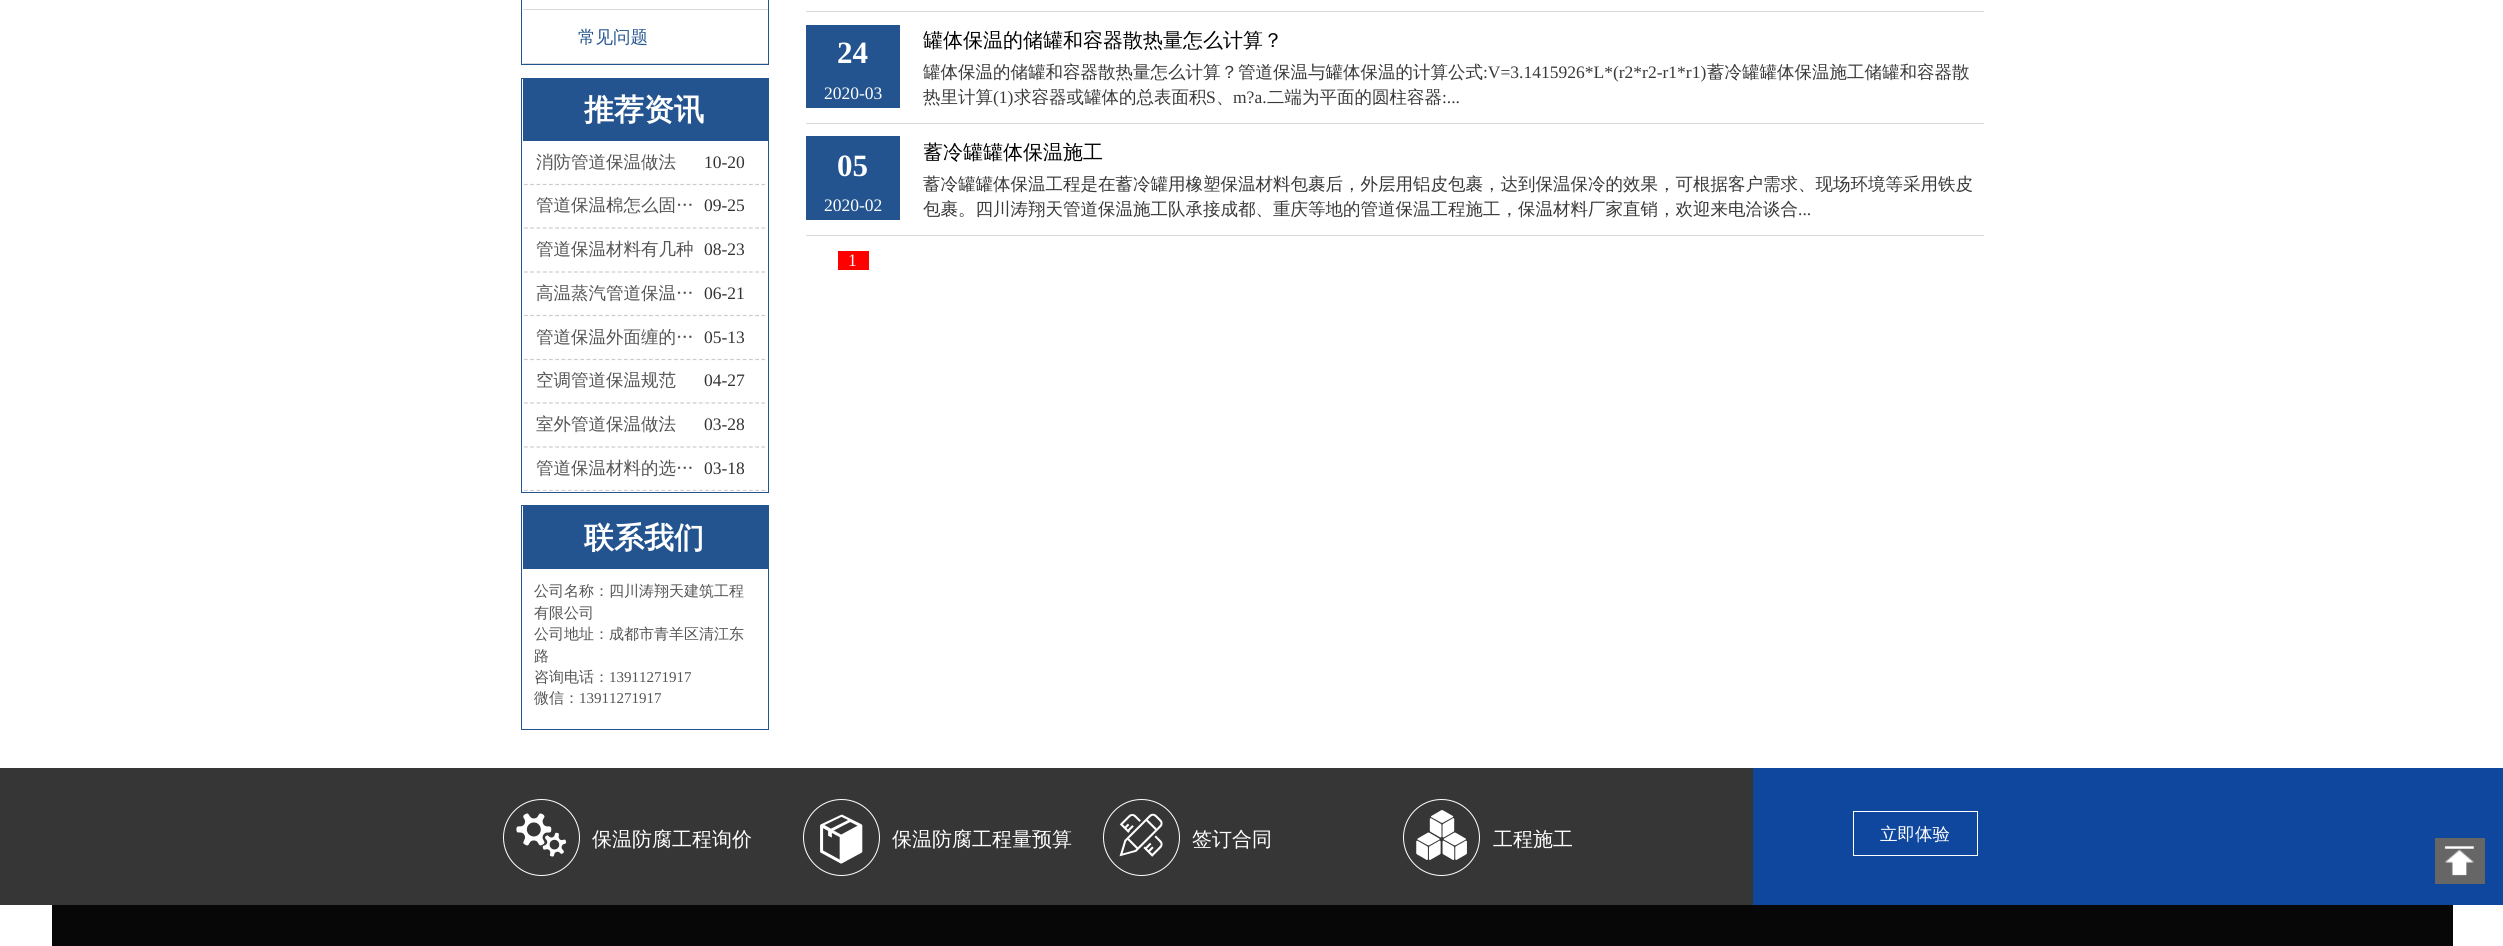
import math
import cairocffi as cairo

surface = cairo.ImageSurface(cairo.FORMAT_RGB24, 2503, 946)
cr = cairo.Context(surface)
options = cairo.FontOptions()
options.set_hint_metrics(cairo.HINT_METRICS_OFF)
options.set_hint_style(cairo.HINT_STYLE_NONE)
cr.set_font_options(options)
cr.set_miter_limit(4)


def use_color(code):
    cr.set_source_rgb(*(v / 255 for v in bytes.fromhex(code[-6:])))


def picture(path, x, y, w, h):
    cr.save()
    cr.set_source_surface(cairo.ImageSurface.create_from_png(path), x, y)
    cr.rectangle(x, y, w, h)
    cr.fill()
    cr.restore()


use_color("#ffffff")
cr.paint()
use_color("#23548f")
cr.rectangle(768, 0, 1, 65)
cr.fill()
cr.rectangle(521, 64, 248, 1)
cr.fill()
cr.rectangle(521, 0, 1, 65)
cr.fill()
use_color("#dadada")
cr.rectangle(523, 9, 245, 1)
cr.fill()
cr.rectangle(523, 63, 245, 1)
cr.fill()
cr.select_font_face("WenQuanYi Zen Hei Medium")
cr.set_font_size(17.5)
use_color("#23548f")
cr.move_to(578, 43)
cr.show_text("常见问题")
cr.rectangle(521.5, 78.5, 247, 414)
cr.set_line_width(1)
cr.stroke()
cr.rectangle(523, 79, 245, 62)
cr.fill()
cr.select_font_face("WenQuanYi Zen Hei", cairo.FONT_SLANT_NORMAL, cairo.FONT_WEIGHT_BOLD)
cr.set_font_size(30)
use_color("#ffffff")
cr.move_to(584, 120)
cr.show_text("推荐资讯")
cr.new_path()
cr.move_to(524, 184.5)
cr.line_to(765, 184.5)
use_color("#cccccc")
cr.set_line_width(1.2)
cr.set_dash([3.75, 2.5])
cr.stroke()
cr.select_font_face("WenQuanYi Zen Hei Medium")
cr.set_font_size(17.5)
use_color("#545454")
cr.move_to(536, 168)
cr.show_text("消防管道保温做法")
cr.select_font_face("Liberation Serif")
use_color("#333333")
cr.move_to(704, 168)
cr.show_text("10-20")
cr.new_path()
cr.move_to(524, 228)
cr.line_to(765, 228)
use_color("#cccccc")
cr.stroke()
cr.select_font_face("WenQuanYi Zen Hei Medium")
use_color("#545454")
cr.move_to(536, 211)
cr.show_text("管道保温棉怎么固…")
cr.select_font_face("Liberation Serif")
use_color("#333333")
cr.move_to(704, 211)
cr.show_text("09-25")
cr.new_path()
cr.move_to(524, 272)
cr.line_to(765, 272)
use_color("#cccccc")
cr.stroke()
cr.select_font_face("WenQuanYi Zen Hei Medium")
use_color("#545454")
cr.move_to(536, 255)
cr.show_text("管道保温材料有几种")
cr.select_font_face("Liberation Serif")
use_color("#333333")
cr.move_to(704, 255)
cr.show_text("08-23")
cr.new_path()
cr.move_to(524, 315.5)
cr.line_to(765, 315.5)
use_color("#cccccc")
cr.stroke()
cr.select_font_face("WenQuanYi Zen Hei Medium")
use_color("#545454")
cr.move_to(536, 299)
cr.show_text("高温蒸汽管道保温…")
cr.select_font_face("Liberation Serif")
use_color("#333333")
cr.move_to(704, 299)
cr.show_text("06-21")
cr.new_path()
cr.move_to(524, 359.5)
cr.line_to(765, 359.5)
use_color("#cccccc")
cr.stroke()
cr.select_font_face("WenQuanYi Zen Hei Medium")
use_color("#545454")
cr.move_to(536, 343)
cr.show_text("管道保温外面缠的…")
cr.select_font_face("Liberation Serif")
use_color("#333333")
cr.move_to(704, 343)
cr.show_text("05-13")
cr.new_path()
cr.move_to(524, 403)
cr.line_to(765, 403)
use_color("#cccccc")
cr.stroke()
cr.select_font_face("WenQuanYi Zen Hei Medium")
use_color("#545454")
cr.move_to(536, 386)
cr.show_text("空调管道保温规范")
cr.select_font_face("Liberation Serif")
use_color("#333333")
cr.move_to(704, 386)
cr.show_text("04-27")
cr.new_path()
cr.move_to(524, 447)
cr.line_to(765, 447)
use_color("#cccccc")
cr.stroke()
cr.select_font_face("WenQuanYi Zen Hei Medium")
use_color("#545454")
cr.move_to(536, 430)
cr.show_text("室外管道保温做法")
cr.select_font_face("Liberation Serif")
use_color("#333333")
cr.move_to(704, 430)
cr.show_text("03-28")
cr.save()
cr.rectangle(524, 141, 241, 350)
cr.clip()
cr.new_path()
cr.move_to(524, 490.5)
cr.line_to(765, 490.5)
use_color("#cccccc")
cr.stroke()
cr.restore()
cr.select_font_face("WenQuanYi Zen Hei Medium")
use_color("#545454")
cr.move_to(536, 474)
cr.show_text("管道保温材料的选…")
cr.select_font_face("Liberation Serif")
use_color("#333333")
cr.move_to(704, 474)
cr.show_text("03-18")
cr.rectangle(521.5, 505.5, 247, 224)
use_color("#23548f")
cr.set_line_width(1)
cr.set_dash([])
cr.stroke()
cr.rectangle(523, 506, 245, 63)
cr.fill()
cr.select_font_face("WenQuanYi Zen Hei", cairo.FONT_SLANT_NORMAL, cairo.FONT_WEIGHT_BOLD)
cr.set_font_size(30)
use_color("#ffffff")
cr.move_to(584, 548)
cr.show_text("联系我们")
cr.select_font_face("WenQuanYi Zen Hei Medium")
cr.set_font_size(15)
use_color("#545454")
cr.move_to(534, 596)
cr.show_text("公司名称：四川涛翔天建筑工程")
cr.move_to(534, 618)
cr.show_text("有限公司")
cr.move_to(534, 639)
cr.show_text("公司地址：成都市青羊区清江东")
cr.move_to(534, 661)
cr.show_text("路")
cr.move_to(534, 682)
cr.show_text("咨询电话：")
cr.select_font_face("Liberation Serif")
cr.move_to(609, 682)
cr.show_text("13911271917")
cr.select_font_face("WenQuanYi Zen Hei Medium")
cr.move_to(534, 703)
cr.show_text("微信：")
cr.select_font_face("Liberation Serif")
cr.move_to(579, 703)
cr.show_text("13911271917")
use_color("#dadada")
cr.rectangle(806, 11, 1178, 1)
cr.fill()
cr.rectangle(806, 123, 1178, 1)
cr.fill()
use_color("#23548f")
cr.rectangle(806, 25, 94, 83)
cr.fill()
cr.select_font_face("Liberation Serif", cairo.FONT_SLANT_NORMAL, cairo.FONT_WEIGHT_BOLD)
cr.set_font_size(31)
use_color("#ffffff")
cr.move_to(837, 63)
cr.show_text("24")
cr.select_font_face("Liberation Serif")
cr.set_font_size(17.5)
cr.move_to(824, 99)
cr.show_text("2020-03")
cr.select_font_face("WenQuanYi Zen Hei Medium")
cr.set_font_size(20)
use_color("#000000")
cr.move_to(923, 47)
cr.show_text("罐体保温的储罐和容器散热量怎么计算？")
cr.set_font_size(17.5)
use_color("#393939")
cr.move_to(923, 78)
cr.show_text("罐体保温的储罐和容器散热量怎么计算？管道保温与罐体保温的计算公式")
cr.select_font_face("Liberation Serif")
cr.move_to(1483, 78)
cr.show_text(":V=3.1415926*L*(r2*r2-r1*r1)")
cr.select_font_face("WenQuanYi Zen Hei Medium")
cr.move_to(1707, 78)
cr.show_text("蓄冷罐罐体保温施工储罐和容器散")
cr.move_to(923, 103)
cr.show_text("热里计算")
cr.select_font_face("Liberation Serif")
cr.move_to(993, 103)
cr.show_text("(1)")
cr.select_font_face("WenQuanYi Zen Hei Medium")
cr.move_to(1014, 103)
cr.show_text("求容器或罐体的总表面积")
cr.select_font_face("Liberation Serif")
cr.move_to(1206, 103)
cr.show_text("S")
cr.select_font_face("WenQuanYi Zen Hei Medium")
cr.move_to(1216, 103)
cr.show_text("、")
cr.select_font_face("Liberation Serif")
cr.move_to(1233, 103)
cr.show_text("m?a.")
cr.select_font_face("WenQuanYi Zen Hei Medium")
cr.move_to(1267, 103)
cr.show_text("二端为平面的圆柱容器")
cr.select_font_face("Liberation Serif")
cr.move_to(1442, 103)
cr.show_text(":...")
use_color("#dadada")
cr.rectangle(806, 235, 1178, 1)
cr.fill()
use_color("#23548f")
cr.rectangle(806, 136, 94, 84)
cr.fill()
cr.select_font_face("Liberation Serif", cairo.FONT_SLANT_NORMAL, cairo.FONT_WEIGHT_BOLD)
cr.set_font_size(31)
use_color("#ffffff")
cr.move_to(837, 176)
cr.show_text("05")
cr.select_font_face("Liberation Serif")
cr.set_font_size(17.5)
cr.move_to(824, 211)
cr.show_text("2020-02")
cr.save()
cr.rectangle(924, 136, 1059, 33)
cr.clip()
cr.select_font_face("WenQuanYi Zen Hei Medium")
cr.set_font_size(20)
use_color("#000000")
cr.move_to(923, 159)
cr.show_text("蓄冷罐罐体保温施工")
cr.restore()
cr.select_font_face("WenQuanYi Zen Hei Medium")
use_color("#393939")
cr.move_to(923, 190)
cr.show_text("蓄冷罐罐体保温工程是在蓄冷罐用橡塑保温材料包裹后，外层用铝皮包裹，达到保温保冷的效果，可根据客户需求、现场环境等采用铁皮")
cr.move_to(923, 215)
cr.show_text("包裹。四川涛翔天管道保温施工队承接成都、重庆等地的管道保温工程施工，保温材料厂家直销，欢迎来电洽谈合")
cr.select_font_face("Liberation Serif")
cr.move_to(1798, 215)
cr.show_text("...")
use_color("#ff0000")
cr.rectangle(838, 251, 31, 19)
cr.fill()
use_color("#ffffff")
cr.move_to(848, 266)
cr.show_text("1")
use_color("#363636")
cr.rectangle(0, 768, 1753, 137)
cr.fill()
cr.arc(541.5, 837.5, 38, 0, 2 * math.pi)
use_color("#ffffff")
cr.stroke()
picture("img1.png", 516, 813, 51, 44)
cr.select_font_face("WenQuanYi Zen Hei Medium")
cr.set_font_size(20)
cr.move_to(592, 846)
cr.show_text("保温防腐工程询价")
cr.new_path()
cr.arc(841.5, 837.5, 38, 0, 2 * math.pi)
cr.stroke()
picture("img2.png", 820, 814, 43, 50)
cr.move_to(892, 846)
cr.show_text("保温防腐工程量预算")
cr.new_path()
cr.arc(1141.5, 837.5, 38, 0, 2 * math.pi)
cr.stroke()
picture("img3.png", 1119, 813, 44, 44)
cr.move_to(1192, 846)
cr.show_text("签订合同")
cr.new_path()
cr.arc(1441.5, 837.5, 38, 0, 2 * math.pi)
cr.stroke()
picture("img4.png", 1416, 810, 51, 50)
cr.move_to(1493, 846)
cr.show_text("工程施工")
use_color("#0f479e")
cr.rectangle(1753, 768, 750, 137)
cr.fill()
cr.rectangle(1853.5, 811.5, 124, 44)
use_color("#ffffff")
cr.stroke()
cr.set_font_size(17.5)
cr.move_to(1880, 840)
cr.show_text("立即体验")
use_color("#666666")
cr.rectangle(2435, 838, 50, 46)
cr.fill()
picture("img5.png", 2444, 846, 30, 30)
use_color("#070707")
cr.rectangle(52, 905, 2401, 41)
cr.fill()
surface.write_to_png("result.png")
